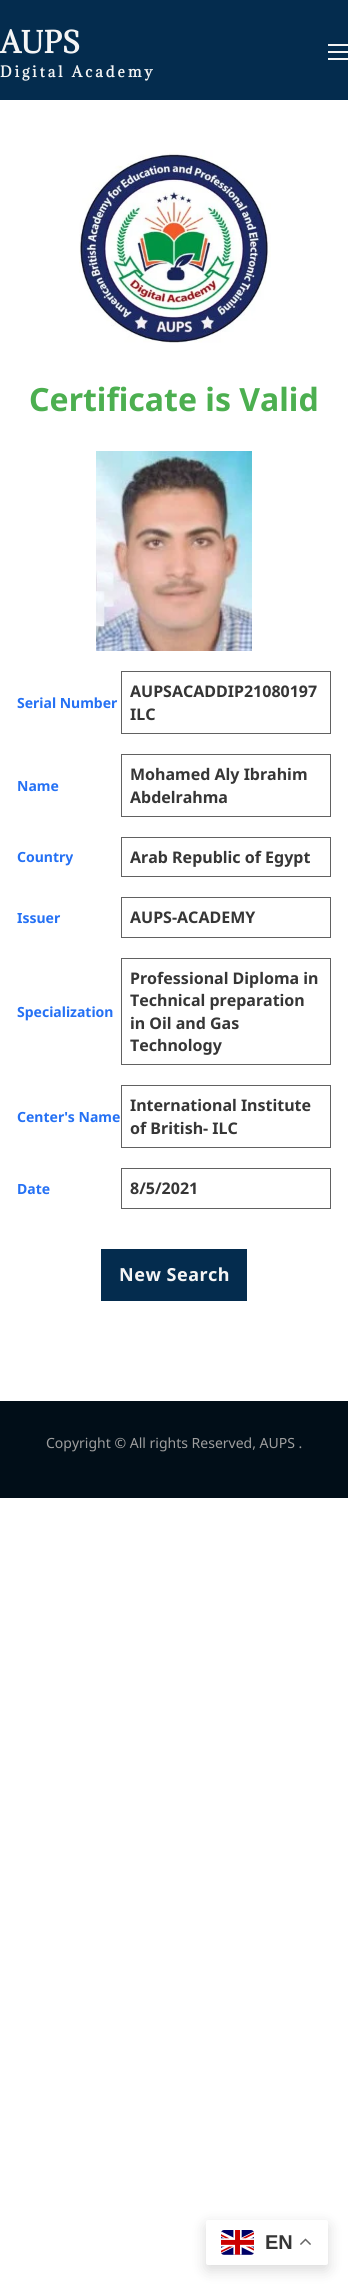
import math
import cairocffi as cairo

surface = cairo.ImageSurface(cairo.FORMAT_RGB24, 348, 2292)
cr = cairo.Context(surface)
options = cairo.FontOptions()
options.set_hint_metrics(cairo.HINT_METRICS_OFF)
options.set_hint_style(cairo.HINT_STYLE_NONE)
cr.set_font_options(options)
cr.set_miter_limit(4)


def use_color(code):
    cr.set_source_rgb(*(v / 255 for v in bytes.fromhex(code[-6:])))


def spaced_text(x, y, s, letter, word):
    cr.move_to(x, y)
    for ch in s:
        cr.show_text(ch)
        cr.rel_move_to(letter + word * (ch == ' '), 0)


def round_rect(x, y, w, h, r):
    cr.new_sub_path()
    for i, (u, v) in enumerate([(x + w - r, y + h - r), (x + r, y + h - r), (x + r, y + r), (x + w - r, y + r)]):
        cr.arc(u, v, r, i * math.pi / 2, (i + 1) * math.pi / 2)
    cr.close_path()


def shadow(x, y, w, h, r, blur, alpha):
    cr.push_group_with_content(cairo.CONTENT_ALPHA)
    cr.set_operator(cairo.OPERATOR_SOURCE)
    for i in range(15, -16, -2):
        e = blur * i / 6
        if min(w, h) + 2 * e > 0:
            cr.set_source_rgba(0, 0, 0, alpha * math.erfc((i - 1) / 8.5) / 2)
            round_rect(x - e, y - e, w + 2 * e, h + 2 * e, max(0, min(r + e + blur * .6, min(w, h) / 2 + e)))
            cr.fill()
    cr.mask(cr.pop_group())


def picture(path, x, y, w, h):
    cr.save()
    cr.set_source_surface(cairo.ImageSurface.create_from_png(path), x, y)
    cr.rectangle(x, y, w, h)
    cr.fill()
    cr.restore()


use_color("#ffffff")
cr.paint()
use_color("#042c4e")
cr.rectangle(0, 0, 348, 100)
cr.fill()
cr.select_font_face("Adamina", cairo.FONT_SLANT_NORMAL, cairo.FONT_WEIGHT_BOLD)
cr.set_font_size(28)
use_color("#f5f5f5")
cr.move_to(0, 53)
cr.show_text("AUPS")
cr.set_font_size(14)
spaced_text(0, 77, "Digital Academy", 3, 0)
cr.rectangle(328, 44, 20, 2)
cr.fill()
cr.rectangle(328, 51, 20, 2)
cr.fill()
cr.rectangle(328, 58, 20, 2)
cr.fill()
picture("img1.png", 79, 150, 192, 193)
cr.select_font_face("Noto Sans", cairo.FONT_SLANT_NORMAL, cairo.FONT_WEIGHT_BOLD)
cr.set_font_size(32)
use_color("#4caf50")
cr.move_to(29, 411)
cr.show_text("Certificate is Valid")
picture("img2.png", 96, 451, 156, 200)
cr.set_font_size(14)
use_color("#2571f4")
cr.move_to(17, 708)
cr.show_text("Serial Number")
cr.rectangle(121.5, 671.5, 209, 62)
use_color("#616161")
cr.set_line_width(1)
cr.stroke()
cr.set_font_size(16)
use_color("#363636")
cr.move_to(130, 697)
cr.show_text("AUPSACADDIP21080197")
cr.move_to(130, 720)
cr.show_text("ILC")
cr.set_font_size(14)
use_color("#2571f4")
cr.move_to(17, 791)
cr.show_text("Name")
cr.rectangle(121.5, 754.5, 209, 62)
use_color("#616161")
cr.stroke()
cr.set_font_size(16)
use_color("#363636")
cr.move_to(130, 780)
cr.show_text("Mohamed Aly Ibrahim")
cr.move_to(130, 803)
cr.show_text("Abdelrahma")
cr.set_font_size(14)
use_color("#2571f4")
cr.move_to(17, 862)
cr.show_text("Country")
cr.rectangle(121.5, 837.5, 209, 39)
use_color("#616161")
cr.stroke()
cr.set_font_size(16)
use_color("#363636")
cr.move_to(130, 863)
cr.show_text("Arab Republic of Egypt")
cr.set_font_size(14)
use_color("#2571f4")
cr.move_to(17, 923)
cr.show_text("Issuer")
cr.rectangle(121.5, 897.5, 209, 40)
use_color("#616161")
cr.stroke()
cr.set_font_size(16)
use_color("#363636")
cr.move_to(130, 923)
cr.show_text("AUPS-ACADEMY")
cr.set_font_size(14)
use_color("#2571f4")
cr.move_to(17, 1017)
cr.show_text("Specialization")
cr.rectangle(121.5, 958.5, 209, 106)
use_color("#616161")
cr.stroke()
cr.set_font_size(16)
use_color("#363636")
cr.move_to(130, 984)
cr.show_text("Professional Diploma in")
cr.move_to(130, 1006)
cr.show_text("Technical preparation")
cr.move_to(130, 1029)
cr.show_text("in Oil and Gas")
cr.move_to(130, 1051)
cr.show_text("Technology")
cr.set_font_size(14)
use_color("#2571f4")
cr.move_to(17, 1122)
cr.show_text("Center's Name")
cr.rectangle(121.5, 1085.5, 209, 62)
use_color("#616161")
cr.stroke()
cr.set_font_size(16)
use_color("#363636")
cr.move_to(130, 1111)
cr.show_text("International Institute")
cr.move_to(130, 1134)
cr.show_text("of British- ILC")
cr.set_font_size(14)
use_color("#2571f4")
cr.move_to(17, 1194)
cr.show_text("Date")
cr.rectangle(121.5, 1168.5, 209, 40)
use_color("#616161")
cr.stroke()
cr.set_font_size(16)
use_color("#363636")
cr.move_to(130, 1194)
cr.show_text("8/5/2021")
use_color("#042c4e")
cr.rectangle(101, 1249, 146, 52)
cr.fill()
cr.set_font_size(18)
use_color("#f5f5f5")
spaced_text(119, 1281, "New Search", 0.5, 0)
use_color("#010e18")
cr.rectangle(0, 1401, 348, 97)
cr.fill()
cr.select_font_face("Noto Sans")
cr.set_font_size(14)
use_color("#9e9e9e")
cr.move_to(46, 1448)
cr.show_text("Copyright © All rights Reserved, AUPS .")
use_color("#000000")
shadow(206, 2225, 122, 45, 2, 7.5, 0.15)
use_color("#ffffff")
round_rect(206, 2220, 122, 45, 2)
cr.fill()
picture("img3.png", 221, 2230, 33, 25)
cr.select_font_face("Liberation Sans", cairo.FONT_SLANT_NORMAL, cairo.FONT_WEIGHT_BOLD)
cr.set_font_size(20)
use_color("#363636")
cr.move_to(265, 2249)
cr.show_text("EN")
picture("img4.png", 300, 2238, 11, 7)
surface.write_to_png("result.png")
